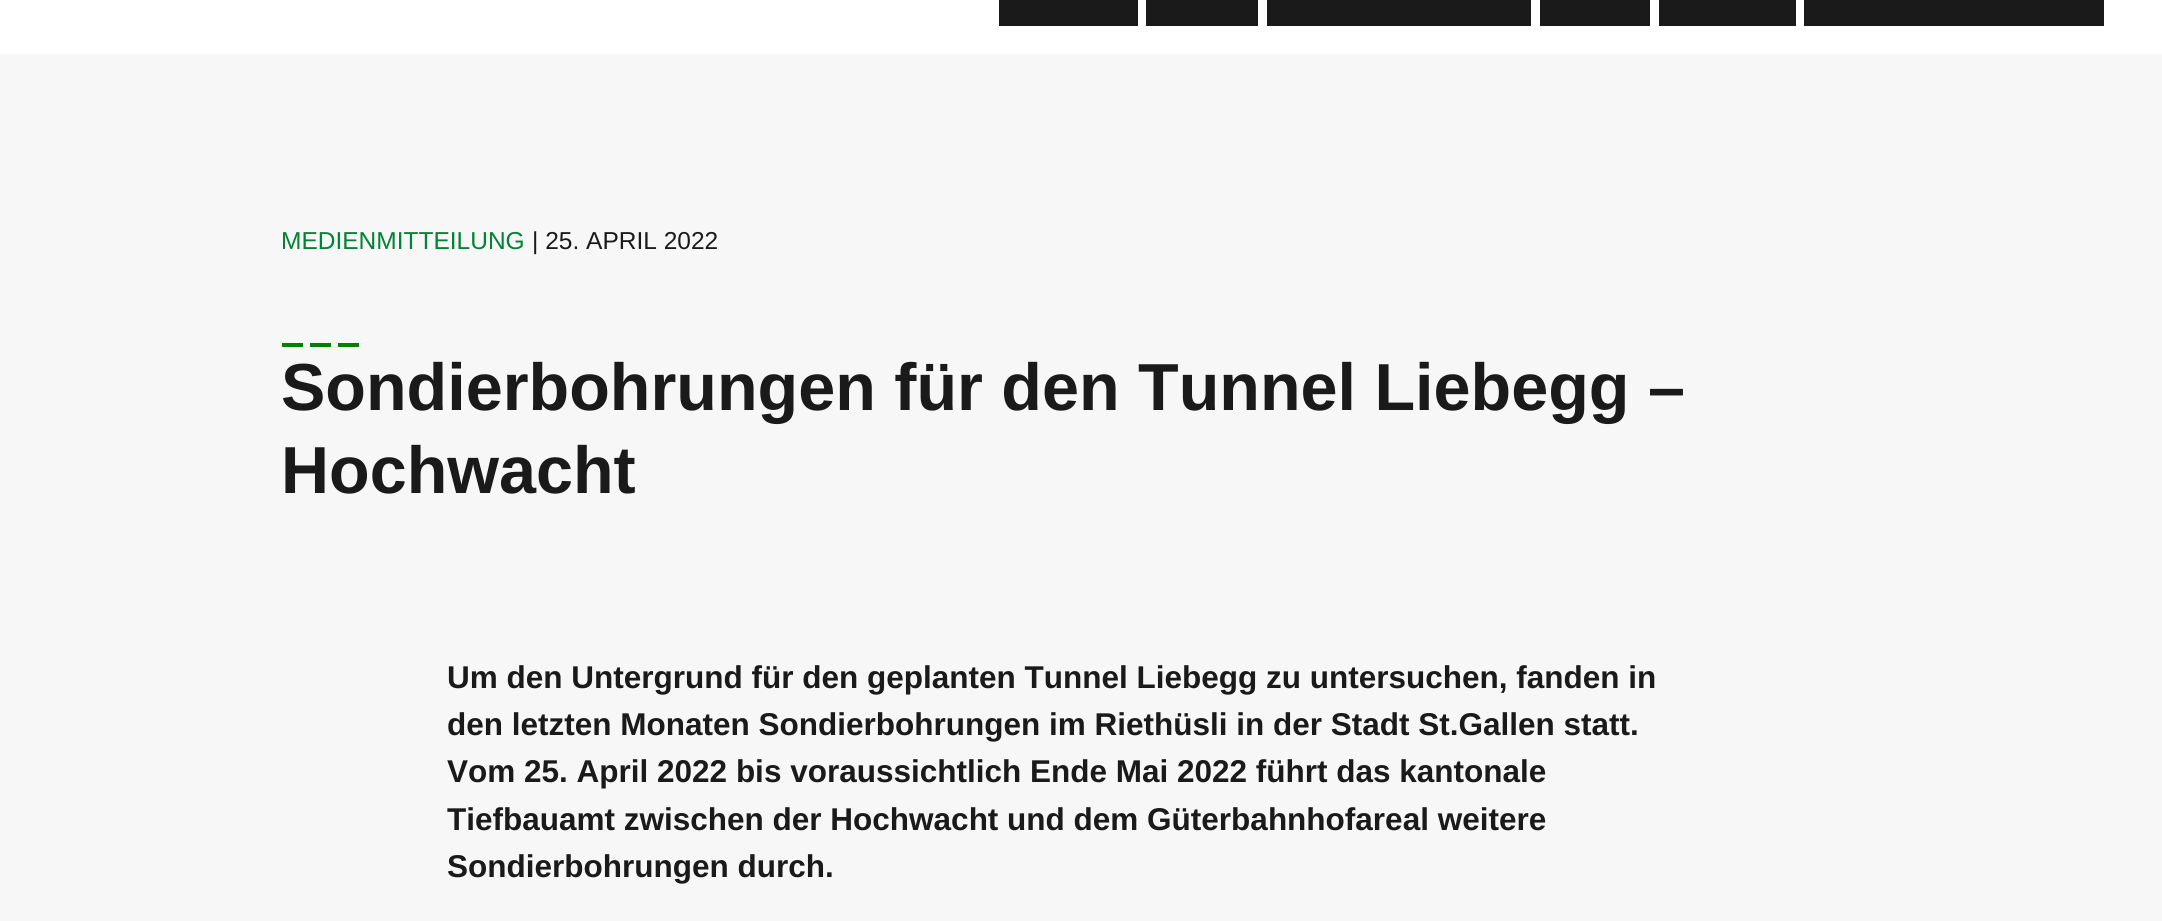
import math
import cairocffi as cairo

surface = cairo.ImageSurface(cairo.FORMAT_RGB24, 2162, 921)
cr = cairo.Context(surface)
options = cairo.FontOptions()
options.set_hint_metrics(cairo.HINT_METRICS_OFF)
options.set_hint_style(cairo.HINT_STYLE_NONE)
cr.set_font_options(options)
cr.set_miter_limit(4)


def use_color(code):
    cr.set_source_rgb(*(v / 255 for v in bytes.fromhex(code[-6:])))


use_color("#ffffff")
cr.paint()
use_color("#1a1a1a")
cr.rectangle(999, 0, 139, 26)
cr.fill()
cr.rectangle(1146, 0, 112, 26)
cr.fill()
cr.rectangle(1267, 0, 264, 26)
cr.fill()
cr.rectangle(1540, 0, 110, 26)
cr.fill()
cr.rectangle(1659, 0, 137, 26)
cr.fill()
cr.rectangle(1804, 0, 300, 26)
cr.fill()
use_color("#f7f7f7")
cr.rectangle(0, 54, 2162, 867)
cr.fill()
cr.select_font_face("Liberation Sans")
cr.set_font_size(24.5)
use_color("#008334")
cr.move_to(281, 249)
cr.show_text("MEDIENMITTEILUNG")
use_color("#1a1a1a")
cr.move_to(532, 249)
cr.show_text("| 25. APRIL 2022")
use_color("#008000")
cr.rectangle(310, 343, 21, 4)
cr.fill()
cr.rectangle(282, 343, 21, 4)
cr.fill()
cr.rectangle(338, 343, 21, 4)
cr.fill()
cr.select_font_face("Liberation Sans", cairo.FONT_SLANT_NORMAL, cairo.FONT_WEIGHT_BOLD)
cr.set_font_size(66.5)
use_color("#1a1a1a")
cr.move_to(281, 410)
cr.show_text("Sondierbohrungen für den Tunnel Liebegg –")
cr.move_to(281, 493)
cr.show_text("Hochwacht")
cr.set_font_size(31.5)
cr.move_to(447, 688)
cr.show_text("Um den Untergrund für den geplanten Tunnel Liebegg zu untersuchen, fanden in")
cr.move_to(447, 735)
cr.show_text("den letzten Monaten Sondierbohrungen im Riethüsli in der Stadt St.Gallen statt.")
cr.move_to(447, 782)
cr.show_text("Vom 25. April 2022 bis voraussichtlich Ende Mai 2022 führt das kantonale")
cr.move_to(447, 830)
cr.show_text("Tiefbauamt zwischen der Hochwacht und dem Güterbahnhofareal weitere")
cr.move_to(447, 877)
cr.show_text("Sondierbohrungen durch.")
surface.write_to_png("result.png")
